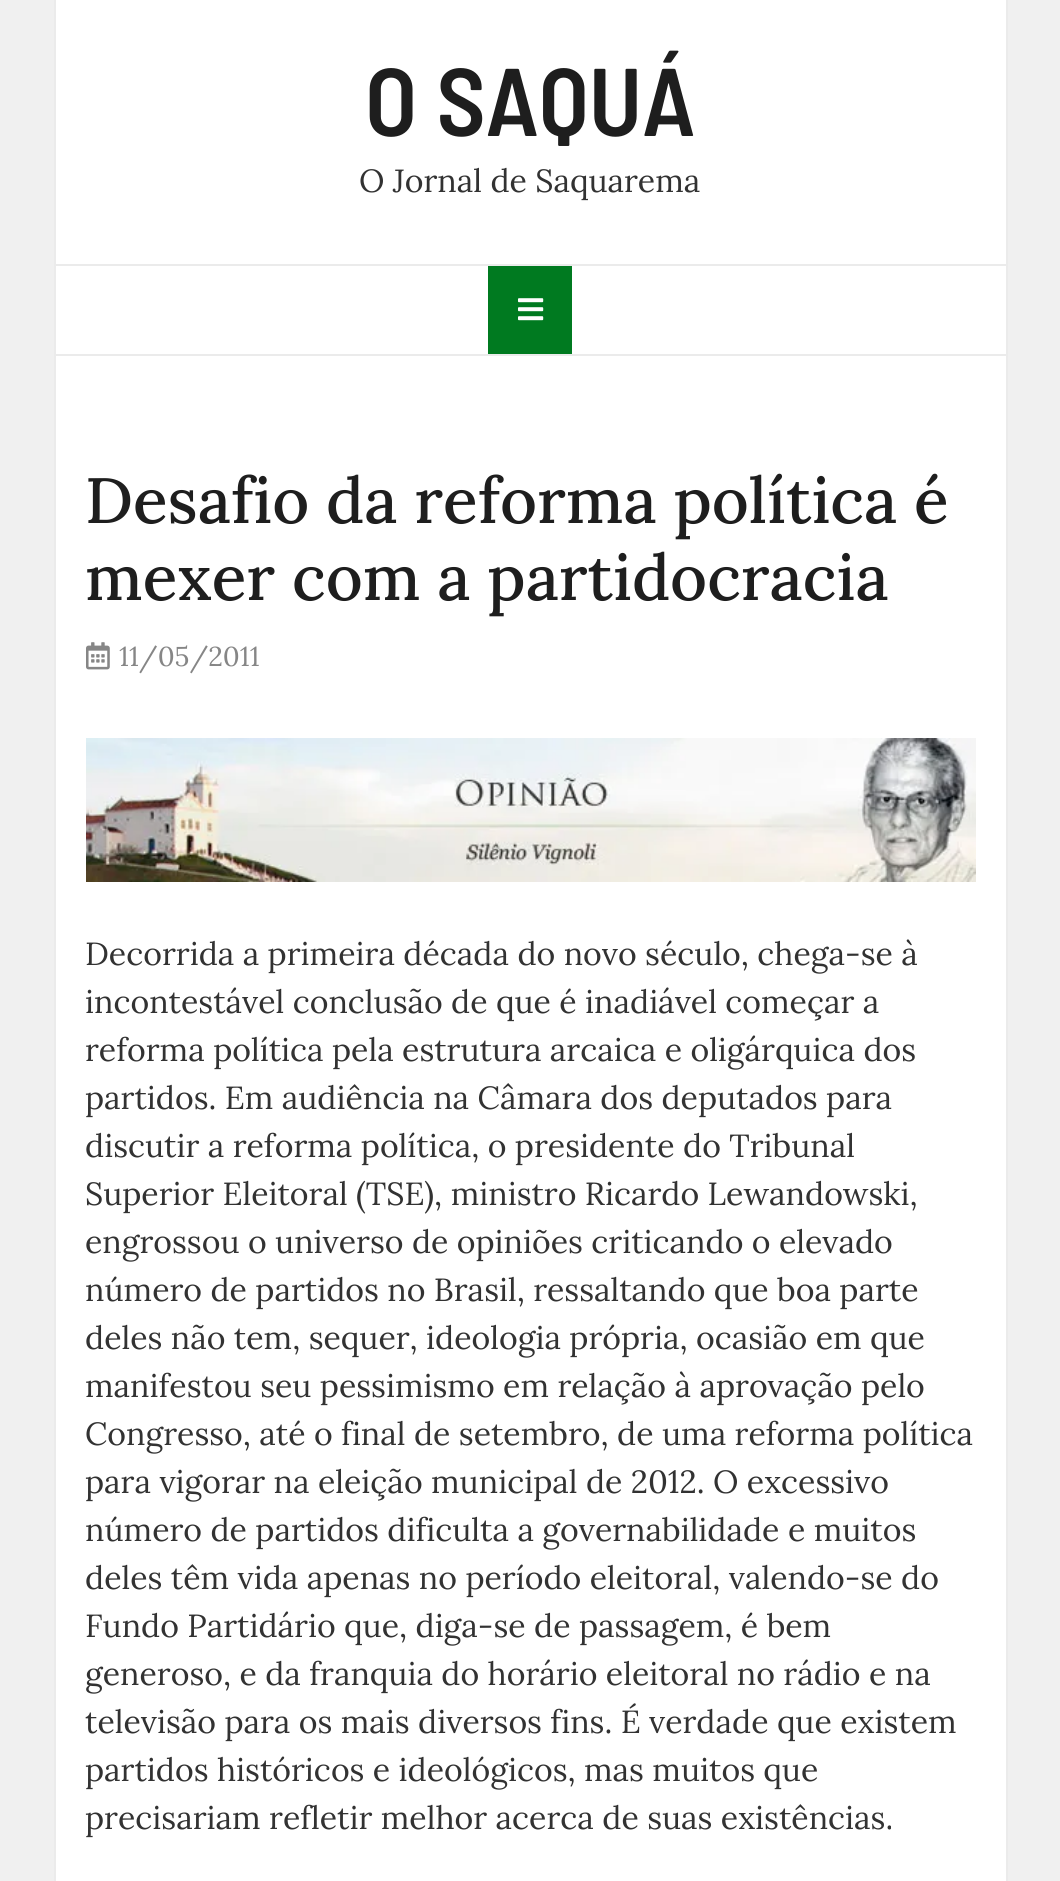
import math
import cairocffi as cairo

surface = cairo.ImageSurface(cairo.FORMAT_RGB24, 1060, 1881)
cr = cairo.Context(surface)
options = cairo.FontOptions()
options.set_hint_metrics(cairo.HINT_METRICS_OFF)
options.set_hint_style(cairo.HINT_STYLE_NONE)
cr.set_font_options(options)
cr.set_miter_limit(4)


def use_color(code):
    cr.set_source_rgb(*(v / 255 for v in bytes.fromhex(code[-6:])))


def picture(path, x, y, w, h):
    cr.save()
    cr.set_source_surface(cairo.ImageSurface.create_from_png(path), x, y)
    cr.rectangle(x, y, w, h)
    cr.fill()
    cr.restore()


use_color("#f0f0f0")
cr.paint()
use_color("#ffffff")
cr.rectangle(56, 0, 950, 1881)
cr.fill()
use_color("#ebebeb")
cr.rectangle(1006, 0, 2, 1881)
cr.fill()
cr.rectangle(54, 0, 2, 1881)
cr.fill()
cr.rectangle(56, 264, 950, 2)
cr.fill()
cr.select_font_face("Barlow Semi Condensed SemiBold")
cr.set_font_size(96)
use_color("#1e1e1e")
cr.move_to(365, 136)
cr.show_text("O SAQUÁ")
cr.select_font_face("Lora")
cr.set_font_size(32)
use_color("#323232")
cr.move_to(359, 192)
cr.show_text("O Jornal de Saquarema")
use_color("#ebebeb")
cr.rectangle(56, 354, 950, 2)
cr.fill()
use_color("#007a20")
cr.rectangle(488, 266, 84, 88)
cr.fill()
picture("img1.png", 518, 298, 26, 23)
cr.select_font_face("Lora Medium")
cr.set_font_size(64)
use_color("#1e1e1e")
cr.move_to(85, 523)
cr.show_text("Desafio da reforma política é")
cr.move_to(85, 600)
cr.show_text("mexer com a partidocracia")
picture("img2.png", 86, 642, 24, 28)
cr.select_font_face("Lora")
cr.set_font_size(27.25)
use_color("#868686")
cr.move_to(119, 666)
cr.show_text("11/05/2011")
picture("img3.png", 86, 738, 890, 144)
cr.set_font_size(32)
use_color("#323232")
cr.move_to(85, 965)
cr.show_text("Decorrida a primeira década do novo século, chega-se à")
cr.move_to(85, 1013)
cr.show_text("incontestável conclusão de que é inadiável começar a")
cr.move_to(85, 1061)
cr.show_text("reforma política pela estrutura arcaica e oligárquica dos")
cr.move_to(85, 1109)
cr.show_text("partidos. Em audiência na Câmara dos deputados para")
cr.move_to(85, 1157)
cr.show_text("discutir a reforma política, o presidente do Tribunal")
cr.move_to(85, 1205)
cr.show_text("Superior Eleitoral (TSE), ministro Ricardo Lewandowski,")
cr.move_to(85, 1253)
cr.show_text("engrossou o universo de opiniões criticando o elevado")
cr.move_to(85, 1301)
cr.show_text("número de partidos no Brasil, ressaltando que boa parte")
cr.move_to(85, 1349)
cr.show_text("deles não tem, sequer, ideologia própria, ocasião em que")
cr.move_to(85, 1397)
cr.show_text("manifestou seu pessimismo em relação à aprovação pelo")
cr.move_to(85, 1445)
cr.show_text("Congresso, até o final de setembro, de uma reforma política")
cr.move_to(85, 1493)
cr.show_text("para vigorar na eleição municipal de 2012. O excessivo")
cr.move_to(85, 1541)
cr.show_text("número de partidos dificulta a governabilidade e muitos")
cr.move_to(85, 1589)
cr.show_text("deles têm vida apenas no período eleitoral, valendo-se do")
cr.move_to(85, 1637)
cr.show_text("Fundo Partidário que, diga-se de passagem, é bem")
cr.move_to(85, 1685)
cr.show_text("generoso, e da franquia do horário eleitoral no rádio e na")
cr.move_to(85, 1733)
cr.show_text("televisão para os mais diversos fins. É verdade que existem")
cr.move_to(85, 1781)
cr.show_text("partidos históricos e ideológicos, mas muitos que")
cr.move_to(85, 1829)
cr.show_text("precisariam refletir melhor acerca de suas existências.")
surface.write_to_png("result.png")
